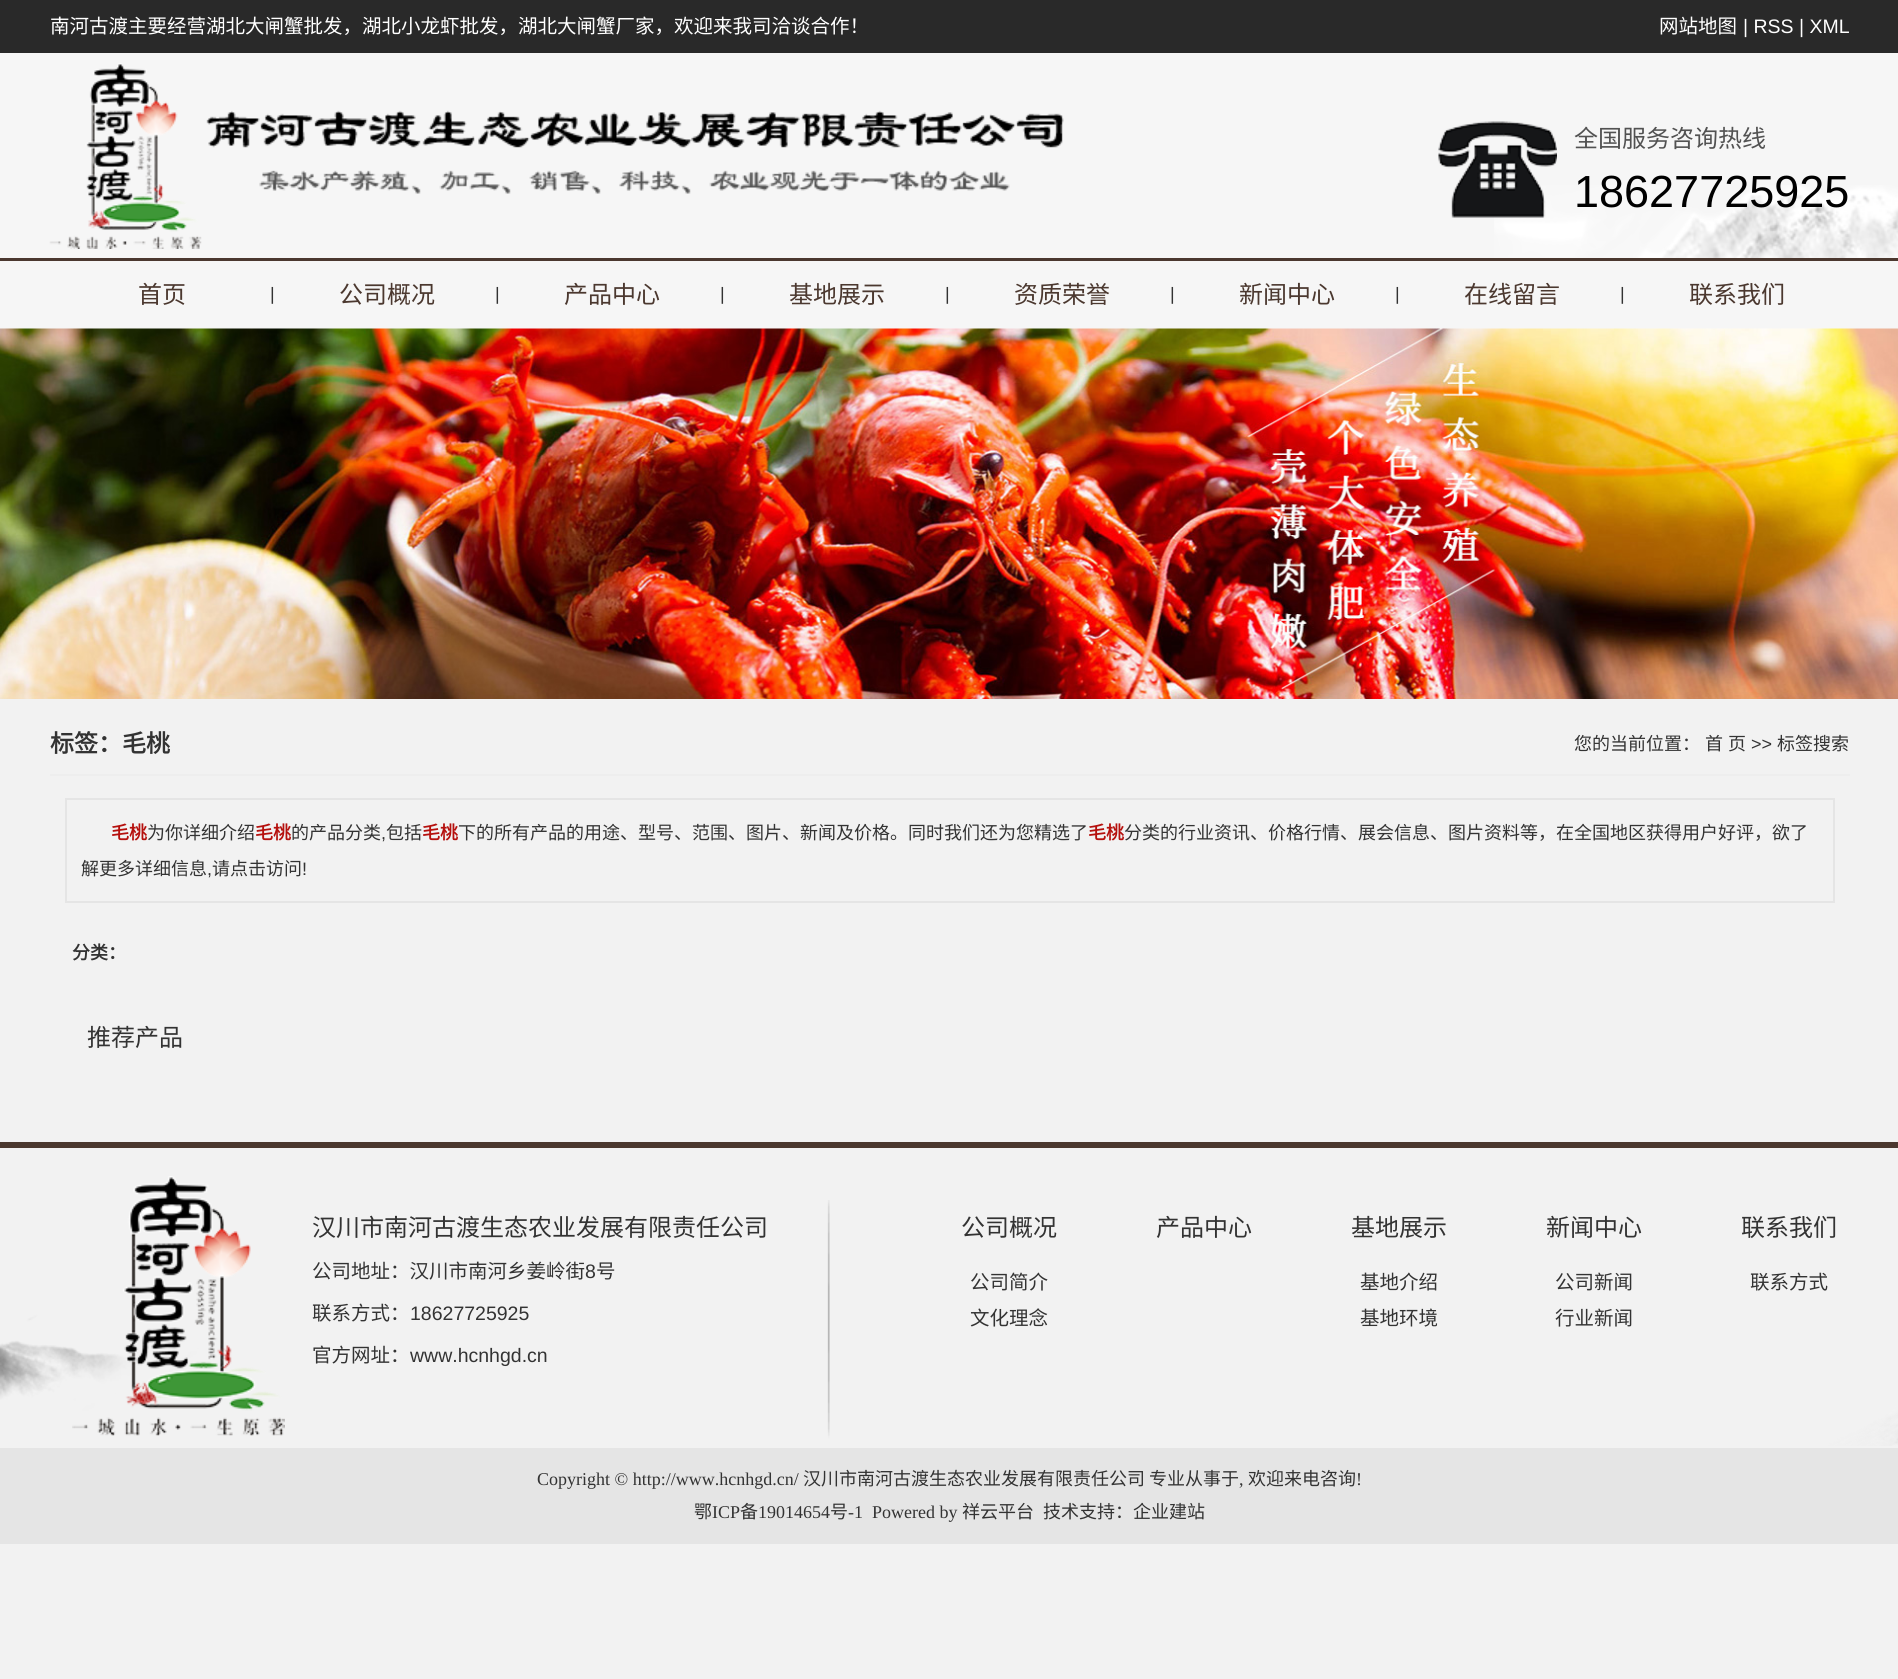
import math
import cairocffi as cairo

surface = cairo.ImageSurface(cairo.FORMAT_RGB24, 1898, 1679)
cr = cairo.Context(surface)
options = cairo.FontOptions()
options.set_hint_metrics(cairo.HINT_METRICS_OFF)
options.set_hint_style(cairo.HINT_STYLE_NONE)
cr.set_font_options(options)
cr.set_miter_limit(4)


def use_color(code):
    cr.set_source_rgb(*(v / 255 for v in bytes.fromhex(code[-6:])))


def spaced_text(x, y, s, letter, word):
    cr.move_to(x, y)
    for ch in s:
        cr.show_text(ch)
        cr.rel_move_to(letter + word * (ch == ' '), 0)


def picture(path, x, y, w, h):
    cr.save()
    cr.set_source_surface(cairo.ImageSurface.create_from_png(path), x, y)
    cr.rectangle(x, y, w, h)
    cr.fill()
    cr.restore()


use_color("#f2f2f2")
cr.paint()
use_color("#292929")
cr.rectangle(0, 0, 1898, 53)
cr.fill()
cr.select_font_face("Noto Sans CJK SC")
cr.set_font_size(19.5)
use_color("#ffffff")
cr.move_to(50, 33)
cr.show_text("南河古渡主要经营湖北大闸蟹批发，湖北小龙虾批发，湖北大闸蟹厂家，欢迎来我司洽谈合作！")
cr.move_to(1659, 33)
cr.show_text("网站地图")
cr.select_font_face("Liberation Sans")
cr.move_to(1743, 33)
cr.show_text("| RSS | XML")
use_color("#f6f6f6")
cr.rectangle(0, 53, 1898, 205)
cr.fill()
picture("img1.png", 1494, 185, 404, 73)
use_color("#4b382f")
cr.rectangle(0, 258, 1898, 3)
cr.fill()
picture("img2.png", 49, 63, 1015, 186)
picture("img3.png", 1438, 121, 119, 97)
cr.select_font_face("Noto Sans CJK SC")
cr.set_font_size(24)
use_color("#525252")
cr.move_to(1574, 147)
cr.show_text("全国服务咨询热线")
cr.select_font_face("Liberation Sans")
cr.set_font_size(45)
use_color("#000000")
cr.move_to(1574, 207)
cr.show_text("18627725925")
use_color("#f6f6f6")
cr.rectangle(0, 261, 1898, 68)
cr.fill()
cr.select_font_face("Noto Sans CJK SC")
cr.set_font_size(24)
use_color("#4b382f")
cr.move_to(138, 303)
cr.show_text("首页")
cr.select_font_face("Liberation Sans")
cr.set_font_size(18)
use_color("#333333")
cr.move_to(270, 300)
cr.show_text("|")
cr.select_font_face("Noto Sans CJK SC")
cr.set_font_size(24)
use_color("#4b382f")
cr.move_to(339, 303)
cr.show_text("公司概况")
cr.select_font_face("Liberation Sans")
cr.set_font_size(18)
use_color("#333333")
cr.move_to(495, 300)
cr.show_text("|")
cr.select_font_face("Noto Sans CJK SC")
cr.set_font_size(24)
use_color("#4b382f")
cr.move_to(564, 303)
cr.show_text("产品中心")
cr.select_font_face("Liberation Sans")
cr.set_font_size(18)
use_color("#333333")
cr.move_to(720, 300)
cr.show_text("|")
cr.select_font_face("Noto Sans CJK SC")
cr.set_font_size(24)
use_color("#4b382f")
cr.move_to(789, 303)
cr.show_text("基地展示")
cr.select_font_face("Liberation Sans")
cr.set_font_size(18)
use_color("#333333")
cr.move_to(945, 300)
cr.show_text("|")
cr.select_font_face("Noto Sans CJK SC")
cr.set_font_size(24)
use_color("#4b382f")
cr.move_to(1014, 303)
cr.show_text("资质荣誉")
cr.select_font_face("Liberation Sans")
cr.set_font_size(18)
use_color("#333333")
cr.move_to(1170, 300)
cr.show_text("|")
cr.select_font_face("Noto Sans CJK SC")
cr.set_font_size(24)
use_color("#4b382f")
cr.move_to(1239, 303)
cr.show_text("新闻中心")
cr.select_font_face("Liberation Sans")
cr.set_font_size(18)
use_color("#333333")
cr.move_to(1395, 300)
cr.show_text("|")
cr.select_font_face("Noto Sans CJK SC")
cr.set_font_size(24)
use_color("#4b382f")
cr.move_to(1464, 303)
cr.show_text("在线留言")
cr.select_font_face("Liberation Sans")
cr.set_font_size(18)
use_color("#333333")
cr.move_to(1620, 300)
cr.show_text("|")
cr.select_font_face("Noto Sans CJK SC")
cr.set_font_size(24)
use_color("#4b382f")
cr.move_to(1689, 303)
cr.show_text("联系我们")
picture("img4.png", 0, 328, 1898, 371)
use_color("#eeeeee")
cr.rectangle(50, 774, 1800, 2)
cr.fill()
cr.select_font_face("Noto Sans CJK SC", cairo.FONT_SLANT_NORMAL, cairo.FONT_WEIGHT_BOLD)
use_color("#333333")
cr.move_to(50, 752)
cr.show_text("标签：毛桃")
cr.select_font_face("Noto Sans CJK SC")
cr.set_font_size(18)
cr.move_to(1574, 750)
cr.show_text("您的当前位置：")
spaced_text(1705, 750, "首 页", 0, 1)
cr.select_font_face("Liberation Sans")
cr.move_to(1751, 750)
cr.show_text(">>")
cr.select_font_face("Noto Sans CJK SC")
cr.move_to(1777, 750)
cr.show_text("标签搜索")
cr.rectangle(66, 799, 1768, 103)
use_color("#e5e5e5")
cr.stroke()
cr.select_font_face("Noto Sans CJK SC", cairo.FONT_SLANT_NORMAL, cairo.FONT_WEIGHT_BOLD)
use_color("#b5100d")
cr.move_to(111, 839)
cr.show_text("毛桃")
cr.select_font_face("Noto Sans CJK SC")
use_color("#333333")
cr.move_to(147, 839)
cr.show_text("为你详细介绍")
cr.select_font_face("Noto Sans CJK SC", cairo.FONT_SLANT_NORMAL, cairo.FONT_WEIGHT_BOLD)
use_color("#b5100d")
cr.move_to(255, 839)
cr.show_text("毛桃")
cr.select_font_face("Noto Sans CJK SC")
use_color("#333333")
cr.move_to(291, 839)
cr.show_text("的产品分类")
cr.select_font_face("Liberation Sans")
cr.move_to(381, 839)
cr.show_text(",")
cr.select_font_face("Noto Sans CJK SC")
cr.move_to(386, 839)
cr.show_text("包括")
cr.select_font_face("Noto Sans CJK SC", cairo.FONT_SLANT_NORMAL, cairo.FONT_WEIGHT_BOLD)
use_color("#b5100d")
cr.move_to(422, 839)
cr.show_text("毛桃")
cr.select_font_face("Noto Sans CJK SC")
use_color("#333333")
cr.move_to(458, 839)
cr.show_text("下的所有产品的用途、型号、范围、图片、新闻及价格。同时我们还为您精选了")
cr.select_font_face("Noto Sans CJK SC", cairo.FONT_SLANT_NORMAL, cairo.FONT_WEIGHT_BOLD)
use_color("#b5100d")
cr.move_to(1088, 839)
cr.show_text("毛桃")
cr.select_font_face("Noto Sans CJK SC")
use_color("#333333")
cr.move_to(1124, 839)
cr.show_text("分类的行业资讯、价格行情、展会信息、图片资料等，在全国地区获得用户好评，欲了")
cr.move_to(81, 875)
cr.show_text("解更多详细信息")
cr.move_to(212, 875)
cr.show_text("请点击访问")
cr.select_font_face("Liberation Sans")
cr.move_to(302, 875)
cr.show_text("!")
cr.move_to(207, 875)
cr.show_text(",")
cr.select_font_face("Noto Sans CJK SC", cairo.FONT_SLANT_NORMAL, cairo.FONT_WEIGHT_BOLD)
cr.move_to(72, 959)
cr.show_text("分类：")
cr.select_font_face("Noto Sans CJK SC")
cr.set_font_size(24)
cr.move_to(87, 1046)
cr.show_text("推荐产品")
picture("img5.png", 0, 1200, 1898, 246)
use_color("#4b382f")
cr.rectangle(0, 1142, 1898, 6)
cr.fill()
picture("img6.png", 72, 1176, 213, 260)
use_color("#333333")
cr.move_to(312, 1236)
cr.show_text("汉川市南河古渡生态农业发展有限责任公司")
cr.set_font_size(19.5)
cr.move_to(312, 1278)
cr.show_text("公司地址：汉川市南河乡姜岭街")
cr.select_font_face("Liberation Sans")
cr.move_to(585, 1278)
cr.show_text("8")
cr.select_font_face("Noto Sans CJK SC")
cr.move_to(596, 1278)
cr.show_text("号")
cr.move_to(312, 1320)
cr.show_text("联系方式：")
cr.select_font_face("Liberation Sans")
cr.move_to(410, 1320)
cr.show_text("18627725925")
cr.select_font_face("Noto Sans CJK SC")
cr.move_to(312, 1362)
cr.show_text("官方网址：")
cr.select_font_face("Liberation Sans")
cr.move_to(410, 1362)
cr.show_text("www.hcnhgd.cn")
cr.select_font_face("Noto Sans CJK SC")
cr.set_font_size(24)
cr.move_to(961, 1236)
cr.show_text("公司概况")
cr.set_font_size(19.5)
cr.move_to(970, 1289)
cr.show_text("公司简介")
cr.move_to(970, 1325)
cr.show_text("文化理念")
cr.set_font_size(24)
cr.move_to(1156, 1236)
cr.show_text("产品中心")
cr.move_to(1351, 1236)
cr.show_text("基地展示")
cr.set_font_size(19.5)
cr.move_to(1360, 1289)
cr.show_text("基地介绍")
cr.move_to(1360, 1325)
cr.show_text("基地环境")
cr.set_font_size(24)
cr.move_to(1546, 1236)
cr.show_text("新闻中心")
cr.set_font_size(19.5)
cr.move_to(1555, 1289)
cr.show_text("公司新闻")
cr.move_to(1555, 1325)
cr.show_text("行业新闻")
cr.set_font_size(24)
cr.move_to(1741, 1236)
cr.show_text("联系我们")
cr.set_font_size(19.5)
cr.move_to(1750, 1289)
cr.show_text("联系方式")
use_color("#e5e5e5")
cr.rectangle(0, 1448, 1898, 96)
cr.fill()
cr.select_font_face("Liberation Serif")
cr.set_font_size(18)
use_color("#333333")
cr.move_to(537, 1485)
cr.show_text("Copyright © http://www.hcnhgd.cn/")
cr.select_font_face("Noto Sans CJK SC")
cr.move_to(803, 1485)
cr.show_text("汉川市南河古渡生态农业发展有限责任公司")
cr.move_to(1149, 1485)
cr.show_text("专业从事于")
cr.select_font_face("Liberation Serif")
cr.move_to(1239, 1485)
cr.show_text(",")
cr.select_font_face("Noto Sans CJK SC")
cr.move_to(1248, 1485)
cr.show_text("欢迎来电咨询")
cr.select_font_face("Liberation Serif")
cr.move_to(1356, 1485)
cr.show_text("!")
cr.select_font_face("Noto Sans CJK SC")
cr.move_to(694, 1518)
cr.show_text("鄂")
cr.select_font_face("Liberation Serif")
cr.move_to(712, 1518)
cr.show_text("ICP")
cr.select_font_face("Noto Sans CJK SC")
cr.move_to(740, 1518)
cr.show_text("备")
cr.select_font_face("Liberation Serif")
cr.move_to(758, 1518)
cr.show_text("19014654")
cr.select_font_face("Noto Sans CJK SC")
cr.move_to(830, 1518)
cr.show_text("号")
cr.select_font_face("Liberation Serif")
cr.move_to(848, 1518)
cr.show_text("-1")
cr.move_to(872, 1518)
cr.show_text("Powered by")
cr.select_font_face("Noto Sans CJK SC")
cr.move_to(962, 1518)
cr.show_text("祥云平台")
cr.move_to(1043, 1518)
cr.show_text("技术支持：企业建站")
surface.write_to_png("result.png")
